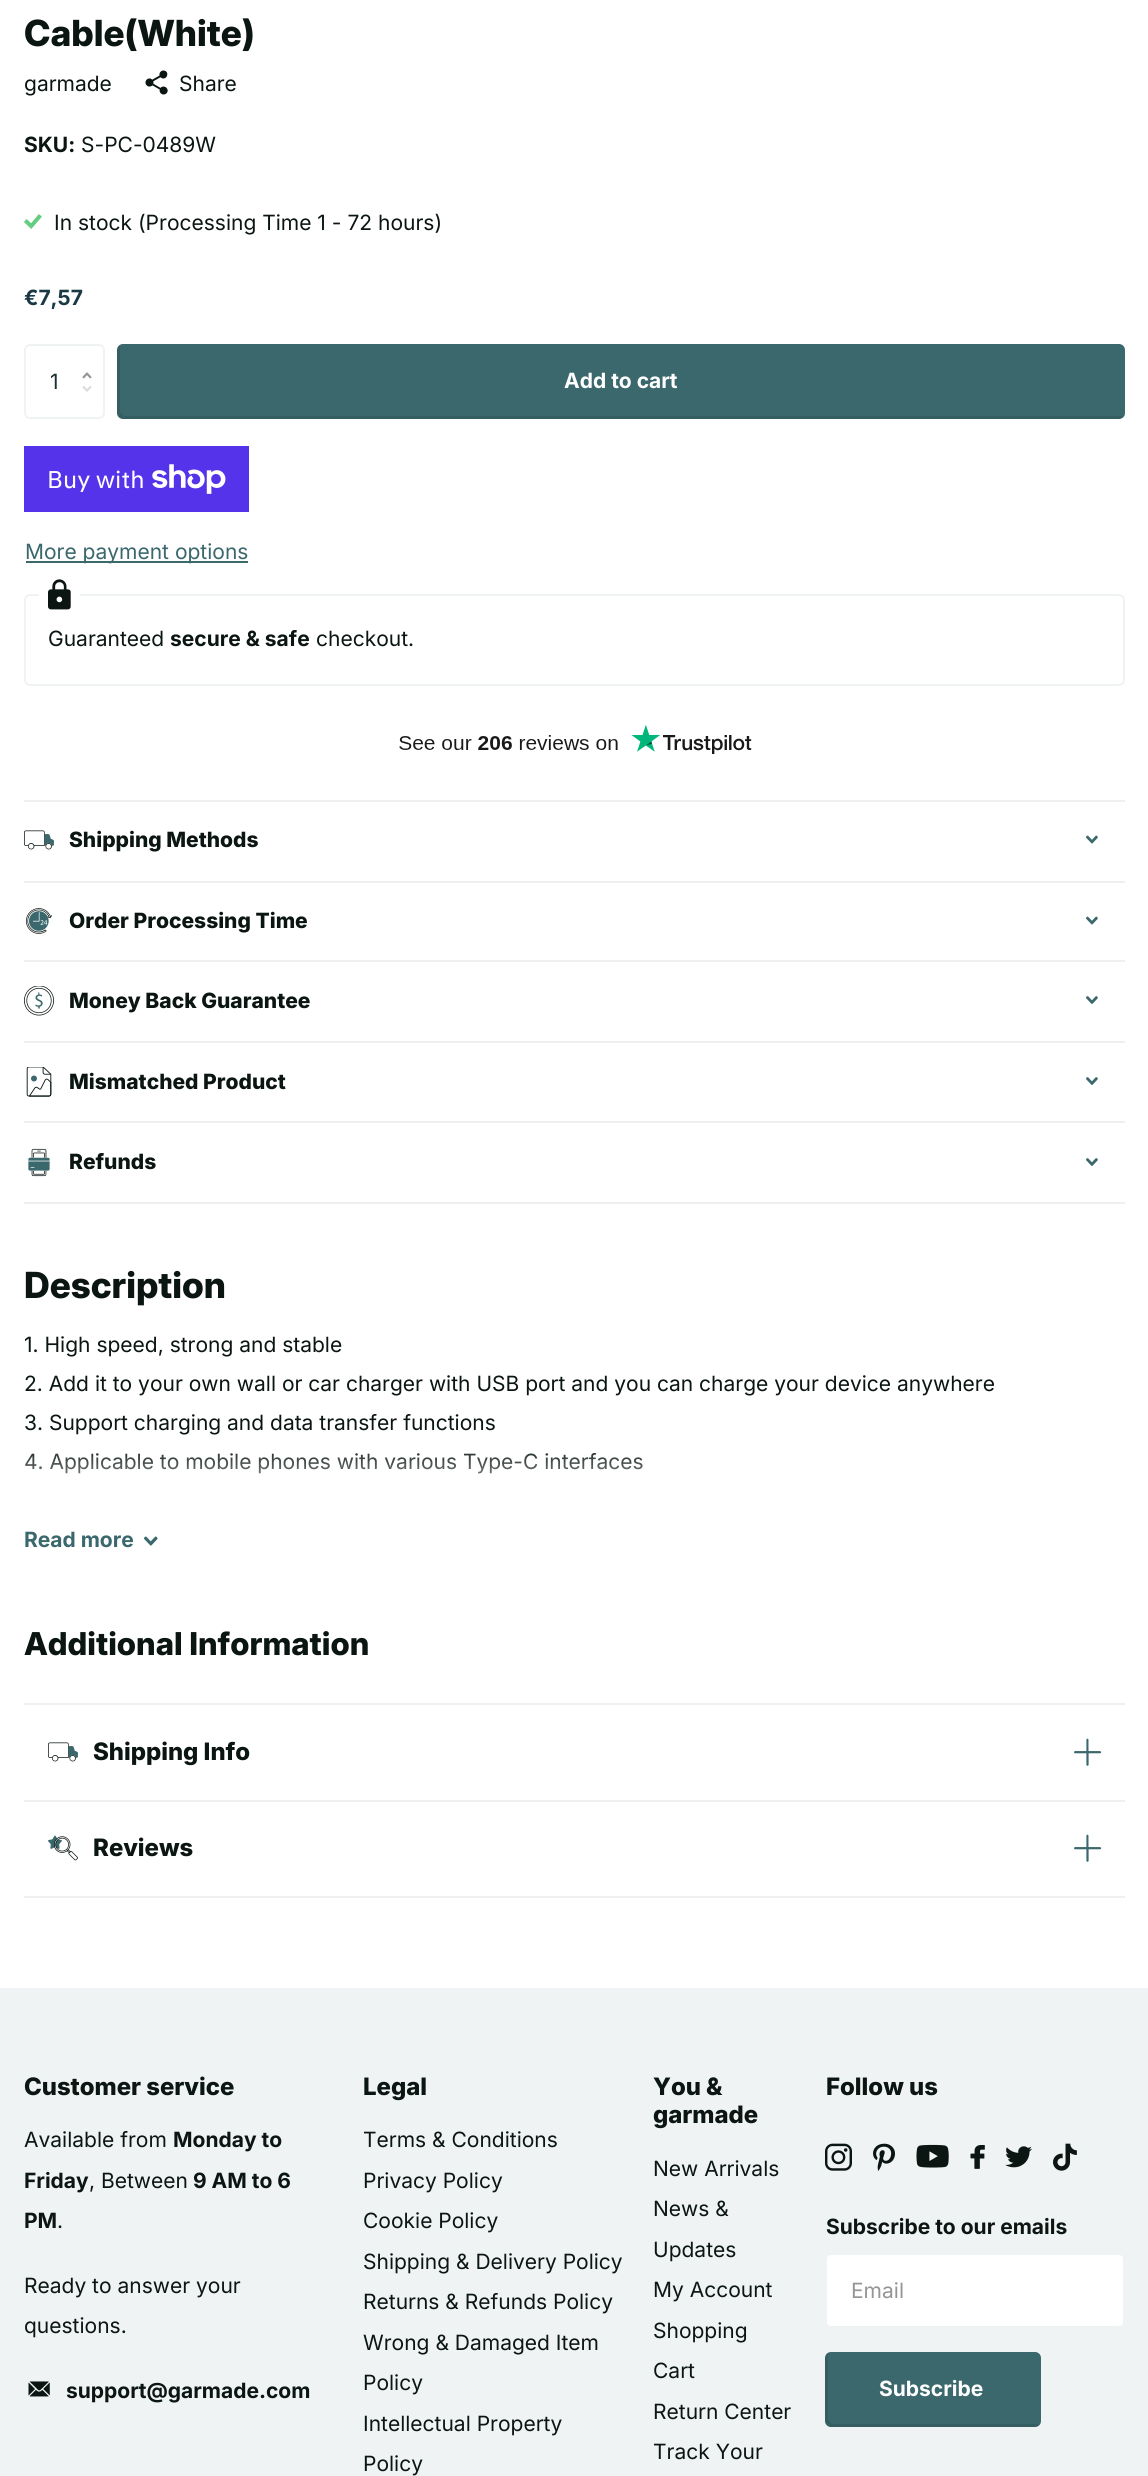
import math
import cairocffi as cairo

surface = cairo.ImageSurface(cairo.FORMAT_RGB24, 1148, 2476)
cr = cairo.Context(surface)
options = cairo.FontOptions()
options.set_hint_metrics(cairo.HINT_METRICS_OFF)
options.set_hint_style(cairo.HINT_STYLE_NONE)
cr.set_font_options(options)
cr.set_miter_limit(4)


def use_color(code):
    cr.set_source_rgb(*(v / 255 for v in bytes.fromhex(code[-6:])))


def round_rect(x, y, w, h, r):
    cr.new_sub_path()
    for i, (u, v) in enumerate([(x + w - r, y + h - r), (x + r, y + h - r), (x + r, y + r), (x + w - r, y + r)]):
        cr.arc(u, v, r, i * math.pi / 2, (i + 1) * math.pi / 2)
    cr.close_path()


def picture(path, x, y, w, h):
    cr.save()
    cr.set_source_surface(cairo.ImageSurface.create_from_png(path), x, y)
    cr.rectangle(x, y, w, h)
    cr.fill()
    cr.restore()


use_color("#ffffff")
cr.paint()
cr.select_font_face("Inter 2 ExtraBold")
cr.set_font_size(36)
use_color("#0b1613")
cr.move_to(24, 46)
cr.show_text("Cable(White)")
cr.select_font_face("Inter")
cr.set_font_size(21)
cr.move_to(24, 91)
cr.show_text("garmade")
picture("img1.png", 145, 70, 23, 25)
cr.move_to(179, 91)
cr.show_text("Share")
cr.select_font_face("Inter", cairo.FONT_SLANT_NORMAL, cairo.FONT_WEIGHT_BOLD)
cr.move_to(24, 152)
cr.show_text("SKU:")
cr.select_font_face("Inter")
cr.move_to(81, 152)
cr.show_text("S-PC-0489W")
picture("img2.png", 24, 214, 18, 15)
cr.move_to(54, 230)
cr.show_text("In stock (Processing Time 1 - 72 hours)")
cr.select_font_face("Inter", cairo.FONT_SLANT_NORMAL, cairo.FONT_WEIGHT_BOLD)
use_color("#1a3945")
cr.move_to(24, 305)
cr.show_text("€7,57")
round_rect(25, 345, 79, 73, 5)
use_color("#f0f3f3")
cr.stroke()
cr.select_font_face("Inter")
use_color("#1b3030")
cr.move_to(50, 389)
cr.show_text("1")
picture("img3.png", 82, 372, 10, 7)
picture("img4.png", 82, 386, 10, 6)
use_color("#3a686c")
round_rect(117, 344, 1008, 75, 6)
cr.fill()
cr.set_source_rgba(0, 0, 0, 0.1)
cr.new_path()
cr.move_to(120, 345)
cr.curve_to(118, 346, 117, 348, 117, 350)
cr.line_to(117, 413)
cr.curve_to(117, 416, 120, 419, 123, 419)
cr.line_to(1119, 419)
cr.curve_to(1121, 419, 1124, 417, 1125, 415)
cr.line_to(1122, 416)
cr.line_to(126, 416)
cr.curve_to(123, 416, 120, 413, 120, 410)
cr.close_path()
cr.fill()
cr.select_font_face("Inter", cairo.FONT_SLANT_NORMAL, cairo.FONT_WEIGHT_BOLD)
use_color("#ffffff")
cr.move_to(564, 388)
cr.show_text("Add to cart")
use_color("#5433eb")
cr.rectangle(24, 446, 225, 66)
cr.fill()
cr.select_font_face("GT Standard")
cr.set_font_size(24)
use_color("#ffffff")
cr.move_to(47, 488)
cr.show_text("Buy with")
picture("img5.png", 152, 464, 74, 30)
use_color("#3a686c")
cr.rectangle(26, 561, 222, 2)
cr.fill()
cr.select_font_face("Inter")
cr.set_font_size(21)
cr.move_to(25, 559)
cr.show_text("More payment options")
round_rect(25, 595, 1099, 90, 5)
use_color("#f0f3f3")
cr.stroke()
use_color("#ffffff")
cr.rectangle(39, 594, 41, 2)
cr.fill()
picture("img6.png", 48, 579, 23, 31)
use_color("#0b1613")
cr.move_to(48, 646)
cr.show_text("Guaranteed")
cr.select_font_face("Inter", cairo.FONT_SLANT_NORMAL, cairo.FONT_WEIGHT_BOLD)
cr.move_to(170, 646)
cr.show_text("secure & safe")
cr.select_font_face("Inter")
cr.move_to(316, 646)
cr.show_text("checkout.")
picture("img7.png", 399, 725, 353, 29)
use_color("#eeefee")
cr.rectangle(24, 800, 1101, 2)
cr.fill()
cr.rectangle(24, 881, 1101, 2)
cr.fill()
picture("img8.png", 24, 830, 30, 20)
cr.select_font_face("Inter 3 ExtraBold")
use_color("#0b1613")
cr.move_to(69, 847)
cr.show_text("Shipping Methods")
picture("img9.png", 1086, 835, 12, 9)
picture("img10.png", 26, 908, 26, 26)
cr.move_to(69, 928)
cr.show_text("Order Processing Time")
picture("img9.png", 1086, 916, 12, 9)
use_color("#eeefee")
cr.rectangle(24, 960, 1101, 2)
cr.fill()
picture("img11.png", 24, 986, 30, 30)
use_color("#0b1613")
cr.move_to(69, 1008)
cr.show_text("Money Back Guarantee")
picture("img12.png", 1086, 996, 12, 8)
use_color("#eeefee")
cr.rectangle(24, 1041, 1101, 2)
cr.fill()
picture("img13.png", 26, 1067, 26, 30)
use_color("#0b1613")
cr.move_to(69, 1089)
cr.show_text("Mismatched Product")
picture("img12.png", 1086, 1077, 12, 8)
use_color("#eeefee")
cr.rectangle(24, 1121, 1101, 2)
cr.fill()
picture("img14.png", 28, 1148, 22, 29)
use_color("#0b1613")
cr.move_to(69, 1169)
cr.show_text("Refunds")
picture("img12.png", 1086, 1158, 12, 8)
use_color("#eeefee")
cr.rectangle(24, 1202, 1101, 2)
cr.fill()
cr.select_font_face("Inter 2 ExtraBold")
cr.set_font_size(36)
use_color("#0b1613")
cr.move_to(24, 1298)
cr.show_text("Description")
cr.select_font_face("Inter")
cr.set_font_size(21)
cr.move_to(24, 1352)
cr.show_text("1. High speed, strong and stable")
cr.move_to(24, 1391)
cr.show_text("2. Add it to your own wall or car charger with USB port and you can charge your device anywhere")
cr.move_to(24, 1430)
cr.show_text("3. Support charging and data transfer functions")
cr.move_to(24, 1469)
cr.show_text("4. Applicable to mobile phones with various Type-C interfaces")
gradient = cairo.LinearGradient(575, 1443, 575, 1521)
gradient.add_color_stop_rgba(0, 1, 1, 1, 0)
gradient.add_color_stop_rgba(1, 1, 1, 1, 1)
cr.set_source(gradient)
cr.rectangle(25, 1453, 618, 21)
cr.fill()
cr.select_font_face("Inter", cairo.FONT_SLANT_NORMAL, cairo.FONT_WEIGHT_BOLD)
use_color("#3a686c")
cr.move_to(24, 1547)
cr.show_text("Read more")
picture("img15.png", 144, 1536, 14, 10)
cr.select_font_face("Inter ExtraBold")
cr.set_font_size(31.5)
use_color("#0b1613")
cr.move_to(24, 1655)
cr.show_text("Additional Information")
use_color("#eeefee")
cr.rectangle(24, 1703, 1101, 2)
cr.fill()
picture("img8.png", 48, 1742, 30, 20)
cr.select_font_face("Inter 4 ExtraBold")
cr.set_font_size(24)
use_color("#0b1613")
cr.move_to(93, 1760)
cr.show_text("Shipping Info")
picture("img16.png", 1074, 1738, 28, 28)
use_color("#eeefee")
cr.rectangle(24, 1800, 1101, 2)
cr.fill()
cr.rectangle(24, 1896, 1101, 2)
cr.fill()
picture("img17.png", 48, 1835, 30, 26)
use_color("#0b1613")
cr.move_to(93, 1856)
cr.show_text("Reviews")
picture("img16.png", 1074, 1834, 28, 28)
use_color("#f0f3f3")
cr.rectangle(0, 1988, 1148, 488)
cr.fill()
use_color("#0b1613")
cr.move_to(24, 2095)
cr.show_text("Customer service")
cr.select_font_face("Inter")
cr.set_font_size(21)
cr.move_to(24, 2147)
cr.show_text("Available from")
cr.select_font_face("Inter", cairo.FONT_SLANT_NORMAL, cairo.FONT_WEIGHT_BOLD)
cr.move_to(173, 2147)
cr.show_text("Monday to")
cr.move_to(24, 2188)
cr.show_text("Friday")
cr.select_font_face("Inter")
cr.move_to(89, 2188)
cr.show_text(", Between")
cr.select_font_face("Inter", cairo.FONT_SLANT_NORMAL, cairo.FONT_WEIGHT_BOLD)
cr.move_to(193, 2188)
cr.show_text("9 AM to 6")
cr.move_to(24, 2228)
cr.show_text("PM")
cr.select_font_face("Inter")
cr.move_to(57, 2228)
cr.show_text(".")
cr.move_to(24, 2293)
cr.show_text("Ready to answer your")
cr.move_to(24, 2333)
cr.show_text("questions.")
picture("img18.png", 28, 2381, 22, 16)
cr.select_font_face("Inter", cairo.FONT_SLANT_NORMAL, cairo.FONT_WEIGHT_BOLD)
cr.move_to(66, 2398)
cr.show_text("support@garmade.com")
cr.select_font_face("Inter 4 ExtraBold")
cr.set_font_size(24)
cr.move_to(363, 2095)
cr.show_text("Legal")
cr.select_font_face("Inter")
cr.set_font_size(21)
cr.move_to(363, 2147)
cr.show_text("Terms & Conditions")
cr.move_to(363, 2188)
cr.show_text("Privacy Policy")
cr.move_to(363, 2228)
cr.show_text("Cookie Policy")
cr.move_to(363, 2269)
cr.show_text("Shipping & Delivery Policy")
cr.move_to(363, 2309)
cr.show_text("Returns & Refunds Policy")
cr.move_to(363, 2350)
cr.show_text("Wrong & Damaged Item")
cr.move_to(363, 2390)
cr.show_text("Policy")
cr.move_to(363, 2431)
cr.show_text("Intellectual Property")
cr.move_to(363, 2471)
cr.show_text("Policy")
cr.select_font_face("Inter 4 ExtraBold")
cr.set_font_size(24)
cr.move_to(653, 2095)
cr.show_text("You &")
cr.move_to(653, 2123)
cr.show_text("garmade")
cr.select_font_face("Inter")
cr.set_font_size(21)
cr.move_to(653, 2176)
cr.show_text("New Arrivals")
cr.move_to(653, 2216)
cr.show_text("News &")
cr.move_to(653, 2257)
cr.show_text("Updates")
cr.move_to(653, 2297)
cr.show_text("My Account")
cr.move_to(653, 2338)
cr.show_text("Shopping")
cr.move_to(653, 2378)
cr.show_text("Cart")
cr.move_to(653, 2419)
cr.show_text("Return Center")
cr.move_to(653, 2459)
cr.show_text("Track Your")
cr.select_font_face("Inter 4 ExtraBold")
cr.set_font_size(24)
cr.move_to(826, 2095)
cr.show_text("Follow us")
picture("img19.png", 825, 2143, 27, 28)
picture("img20.png", 873, 2143, 22, 28)
picture("img21.png", 916, 2144, 33, 24)
picture("img22.png", 970, 2145, 15, 24)
picture("img23.png", 1005, 2146, 27, 22)
picture("img24.png", 1053, 2143, 24, 28)
cr.select_font_face("Inter", cairo.FONT_SLANT_NORMAL, cairo.FONT_WEIGHT_BOLD)
cr.set_font_size(21)
cr.move_to(826, 2234)
cr.show_text("Subscribe to our emails")
use_color("#ffffff")
round_rect(826, 2254, 298, 73, 5)
cr.fill_preserve()
use_color("#f0f3f3")
cr.stroke()
cr.select_font_face("Inter")
use_color("#959595")
cr.move_to(851, 2298)
cr.show_text("Email")
use_color("#3a686c")
round_rect(825, 2352, 216, 75, 6)
cr.fill()
cr.set_source_rgba(0, 0, 0, 0.1)
cr.new_path()
cr.move_to(829, 2352)
cr.curve_to(827, 2353, 825, 2356, 825, 2358)
cr.line_to(825, 2421)
cr.curve_to(825, 2424, 828, 2427, 831, 2427)
cr.line_to(1035, 2427)
cr.curve_to(1037, 2427, 1040, 2425, 1041, 2423)
cr.line_to(1038, 2424)
cr.line_to(834, 2424)
cr.curve_to(831, 2424, 828, 2421, 828, 2418)
cr.line_to(828, 2355)
cr.close_path()
cr.fill()
cr.select_font_face("Inter", cairo.FONT_SLANT_NORMAL, cairo.FONT_WEIGHT_BOLD)
use_color("#ffffff")
cr.move_to(879, 2396)
cr.show_text("Subscribe")
surface.write_to_png("result.png")
